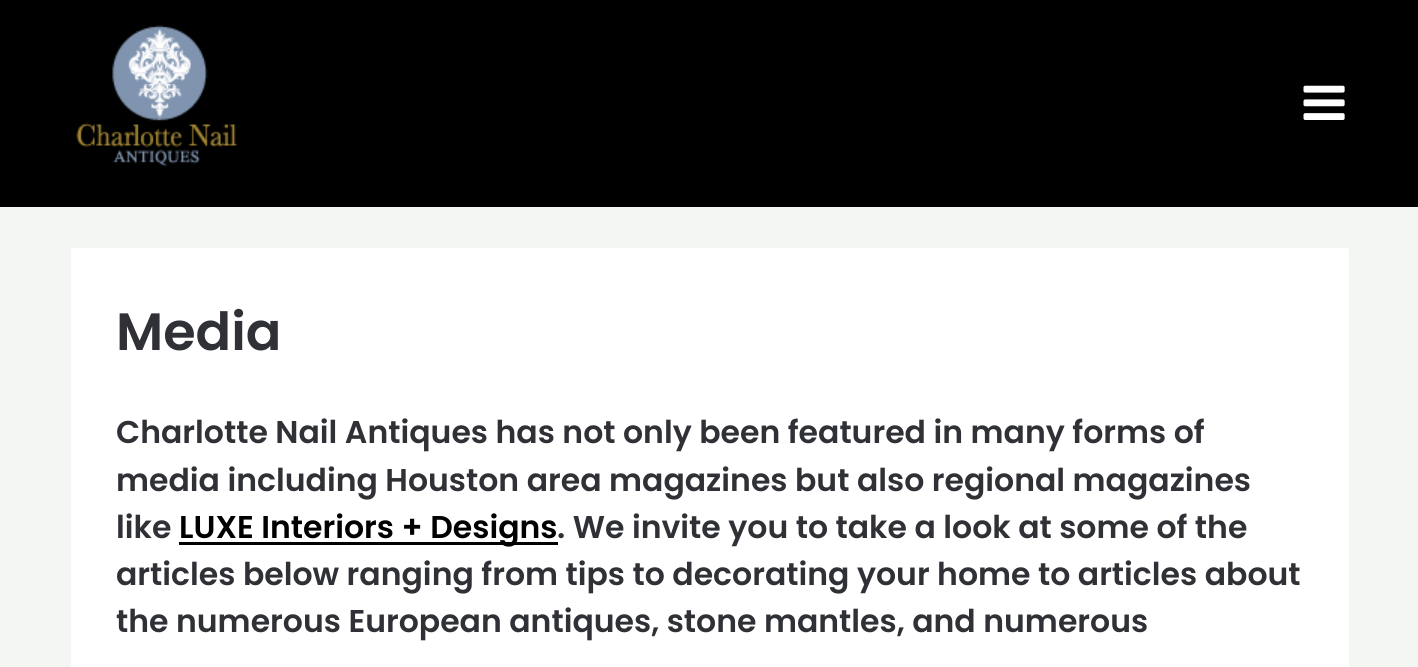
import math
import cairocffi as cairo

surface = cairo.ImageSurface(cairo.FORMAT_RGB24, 1418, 667)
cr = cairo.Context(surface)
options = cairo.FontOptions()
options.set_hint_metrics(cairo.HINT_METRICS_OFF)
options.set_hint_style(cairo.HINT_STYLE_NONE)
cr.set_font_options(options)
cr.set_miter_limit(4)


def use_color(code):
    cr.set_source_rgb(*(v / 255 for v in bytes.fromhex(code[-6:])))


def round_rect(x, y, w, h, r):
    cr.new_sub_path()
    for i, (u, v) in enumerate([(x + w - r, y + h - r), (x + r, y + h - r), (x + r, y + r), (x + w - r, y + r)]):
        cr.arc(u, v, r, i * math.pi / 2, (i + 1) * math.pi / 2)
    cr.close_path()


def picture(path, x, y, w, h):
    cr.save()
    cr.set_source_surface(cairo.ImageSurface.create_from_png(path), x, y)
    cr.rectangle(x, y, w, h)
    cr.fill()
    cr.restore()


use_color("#f4f6f3")
cr.paint()
use_color("#000000")
cr.rectangle(0, 0, 1418, 207)
cr.fill()
picture("img1.png", 76, 25, 162, 142)
picture("img2.png", 1303, 85, 42, 35)
use_color("#ffffff")
round_rect(71, 248, 1278, 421, 1.5)
cr.fill()
cr.select_font_face("Poppins SemiBold")
cr.set_font_size(52.5)
use_color("#2f3136")
cr.move_to(116, 350)
cr.show_text("Media")
cr.set_font_size(31.5)
cr.move_to(116, 443)
cr.show_text("Charlotte Nail Antiques has not only been featured in many forms of")
cr.move_to(116, 491)
cr.show_text("media including Houston area magazines but also regional magazines")
cr.move_to(116, 538)
cr.show_text("like")
use_color("#000000")
cr.rectangle(179, 542, 379, 3)
cr.fill()
cr.move_to(179, 538)
cr.show_text("LUXE Interiors + Designs")
use_color("#2f3136")
cr.move_to(557, 538)
cr.show_text(". We invite you to take a look at some of the")
cr.move_to(116, 585)
cr.show_text("articles below ranging from tips to decorating your home to articles about")
cr.move_to(116, 632)
cr.show_text("the numerous European antiques, stone mantles, and numerous")
surface.write_to_png("result.png")
